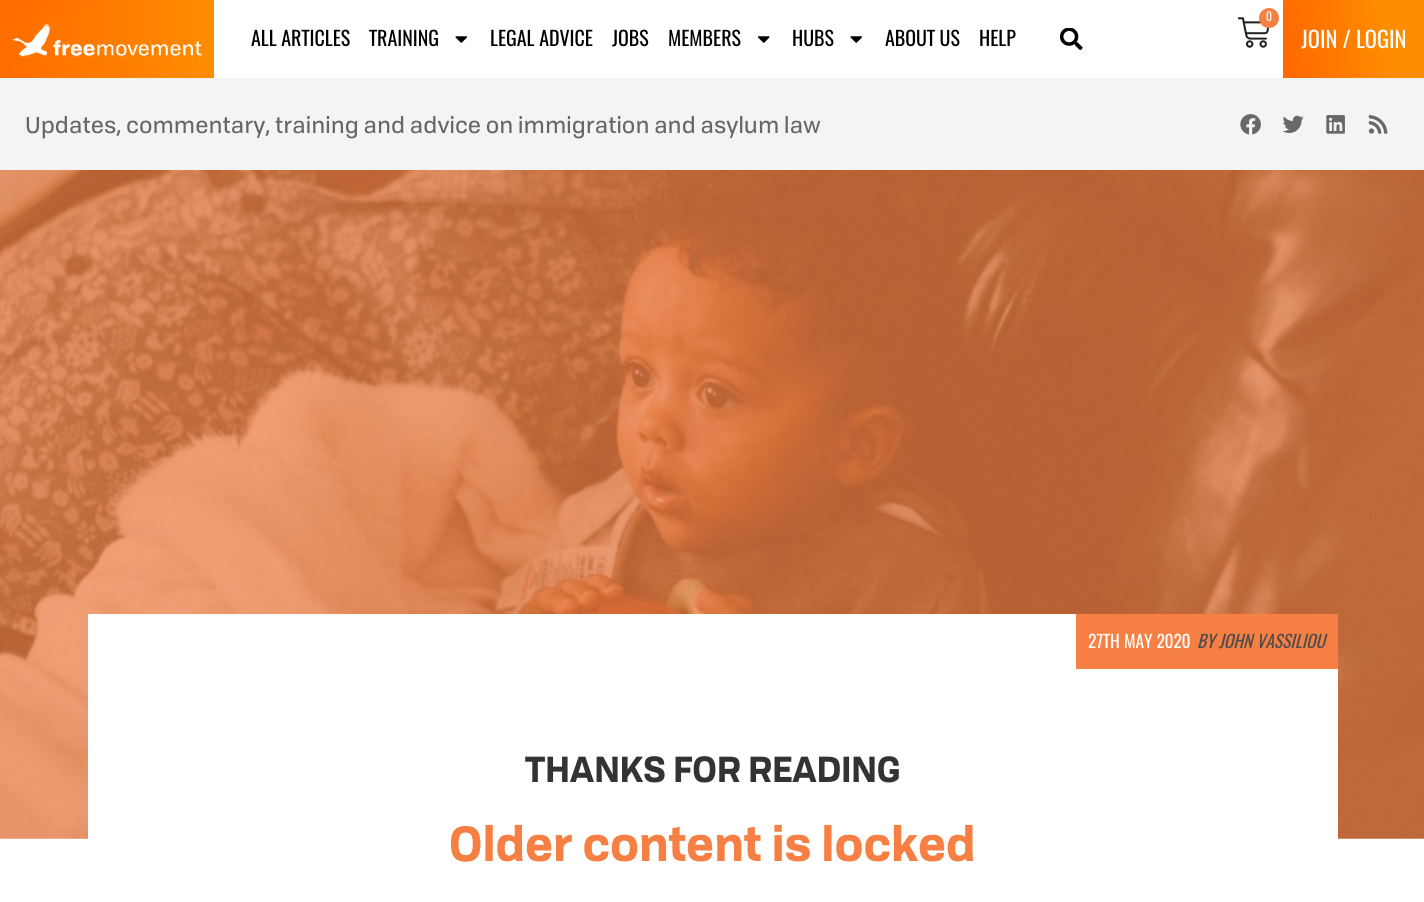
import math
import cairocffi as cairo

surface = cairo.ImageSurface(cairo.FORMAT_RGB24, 1424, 902)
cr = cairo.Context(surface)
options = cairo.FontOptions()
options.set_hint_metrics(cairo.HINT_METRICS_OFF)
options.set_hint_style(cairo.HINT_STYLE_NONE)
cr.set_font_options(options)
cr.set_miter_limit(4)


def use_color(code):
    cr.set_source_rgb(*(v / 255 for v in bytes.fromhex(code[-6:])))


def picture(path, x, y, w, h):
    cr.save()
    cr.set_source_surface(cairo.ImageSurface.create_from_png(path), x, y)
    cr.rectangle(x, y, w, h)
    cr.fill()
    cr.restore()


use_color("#ffffff")
cr.paint()
gradient = cairo.LinearGradient(71, -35, 143, 112)
gradient.add_color_stop_rgba(0, 1, 0.4, 0, 1)
gradient.add_color_stop_rgba(0.28, 0.996, 0.549, 0, 1)
cr.set_source(gradient)
cr.rectangle(1, 0, 213, 78)
cr.fill()
gradient = cairo.LinearGradient(214, 39, 0, 39)
gradient.add_color_stop_rgba(0, 1, 0.424, 0, 0)
gradient.add_color_stop_rgba(1, 1, 0.424, 0, 1)
cr.set_source(gradient)
cr.rectangle(0, 0, 198, 78)
cr.fill()
picture("img1.png", 12, 23, 190, 34)
picture("img2.png", 1238, 17, 32, 31)
use_color("#f68044")
cr.arc(1269, 18, 10, 0, 2 * math.pi)
cr.fill()
cr.select_font_face("Oswald")
cr.set_font_size(12)
use_color("#ffffff")
cr.move_to(1266, 21)
cr.show_text("0")
cr.set_font_size(20)
use_color("#000000")
cr.move_to(251, 46)
cr.show_text("ALL ARTICLES")
cr.move_to(369, 46)
cr.show_text("TRAINING")
picture("img3.png", 455, 36, 12, 7)
cr.move_to(490, 46)
cr.show_text("LEGAL ADVICE")
cr.move_to(612, 46)
cr.show_text("JOBS")
cr.move_to(668, 46)
cr.show_text("MEMBERS")
picture("img4.png", 758, 36, 12, 7)
cr.move_to(792, 46)
cr.show_text("HUBS")
picture("img3.png", 850, 36, 12, 7)
cr.move_to(885, 46)
cr.show_text("ABOUT US")
cr.move_to(979, 46)
cr.show_text("HELP")
picture("img5.png", 1060, 28, 23, 22)
gradient = cairo.LinearGradient(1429, 25, 1278, 52)
gradient.add_color_stop_rgba(0.29, 0.996, 0.549, 0, 1)
gradient.add_color_stop_rgba(1, 1, 0.4, 0, 1)
cr.set_source(gradient)
cr.rectangle(1283, 0, 141, 78)
cr.fill()
cr.set_font_size(22.5)
use_color("#ffffff")
cr.move_to(1301, 48)
cr.show_text("JOIN / LOGIN")
use_color("#f4f4f4")
cr.rectangle(0, 78, 1424, 92)
cr.fill()
cr.select_font_face("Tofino")
use_color("#666666")
cr.move_to(25, 133)
cr.show_text("Updates, commentary, training and advice on immigration and asylum law")
picture("img6.png", 1240, 114, 21, 21)
picture("img7.png", 1283, 115, 21, 18)
picture("img8.png", 1326, 115, 19, 19)
picture("img9.png", 1368, 115, 20, 19)
picture("img10.png", 0, 170, 1424, 669)
use_color("#ffffff")
cr.rectangle(88, 614, 1250, 225)
cr.fill()
use_color("#f68044")
cr.rectangle(1076, 614, 262, 55)
cr.fill()
cr.select_font_face("Oswald")
cr.set_font_size(17.5)
use_color("#ffffff")
cr.move_to(1088, 648)
cr.show_text("27TH MAY 2020")
cr.select_font_face("Oswald", cairo.FONT_SLANT_ITALIC)
use_color("#4c4c4c")
cr.move_to(1197, 648)
cr.show_text("BY JOHN VASSILIOU")
cr.select_font_face("Tofino", cairo.FONT_SLANT_NORMAL, cairo.FONT_WEIGHT_BOLD)
cr.set_font_size(35)
use_color("#333333")
cr.move_to(525, 782)
cr.show_text("THANKS FOR READING")
cr.set_font_size(47.5)
use_color("#f68044")
cr.move_to(449, 861)
cr.show_text("Older content is locked")
surface.write_to_png("result.png")
